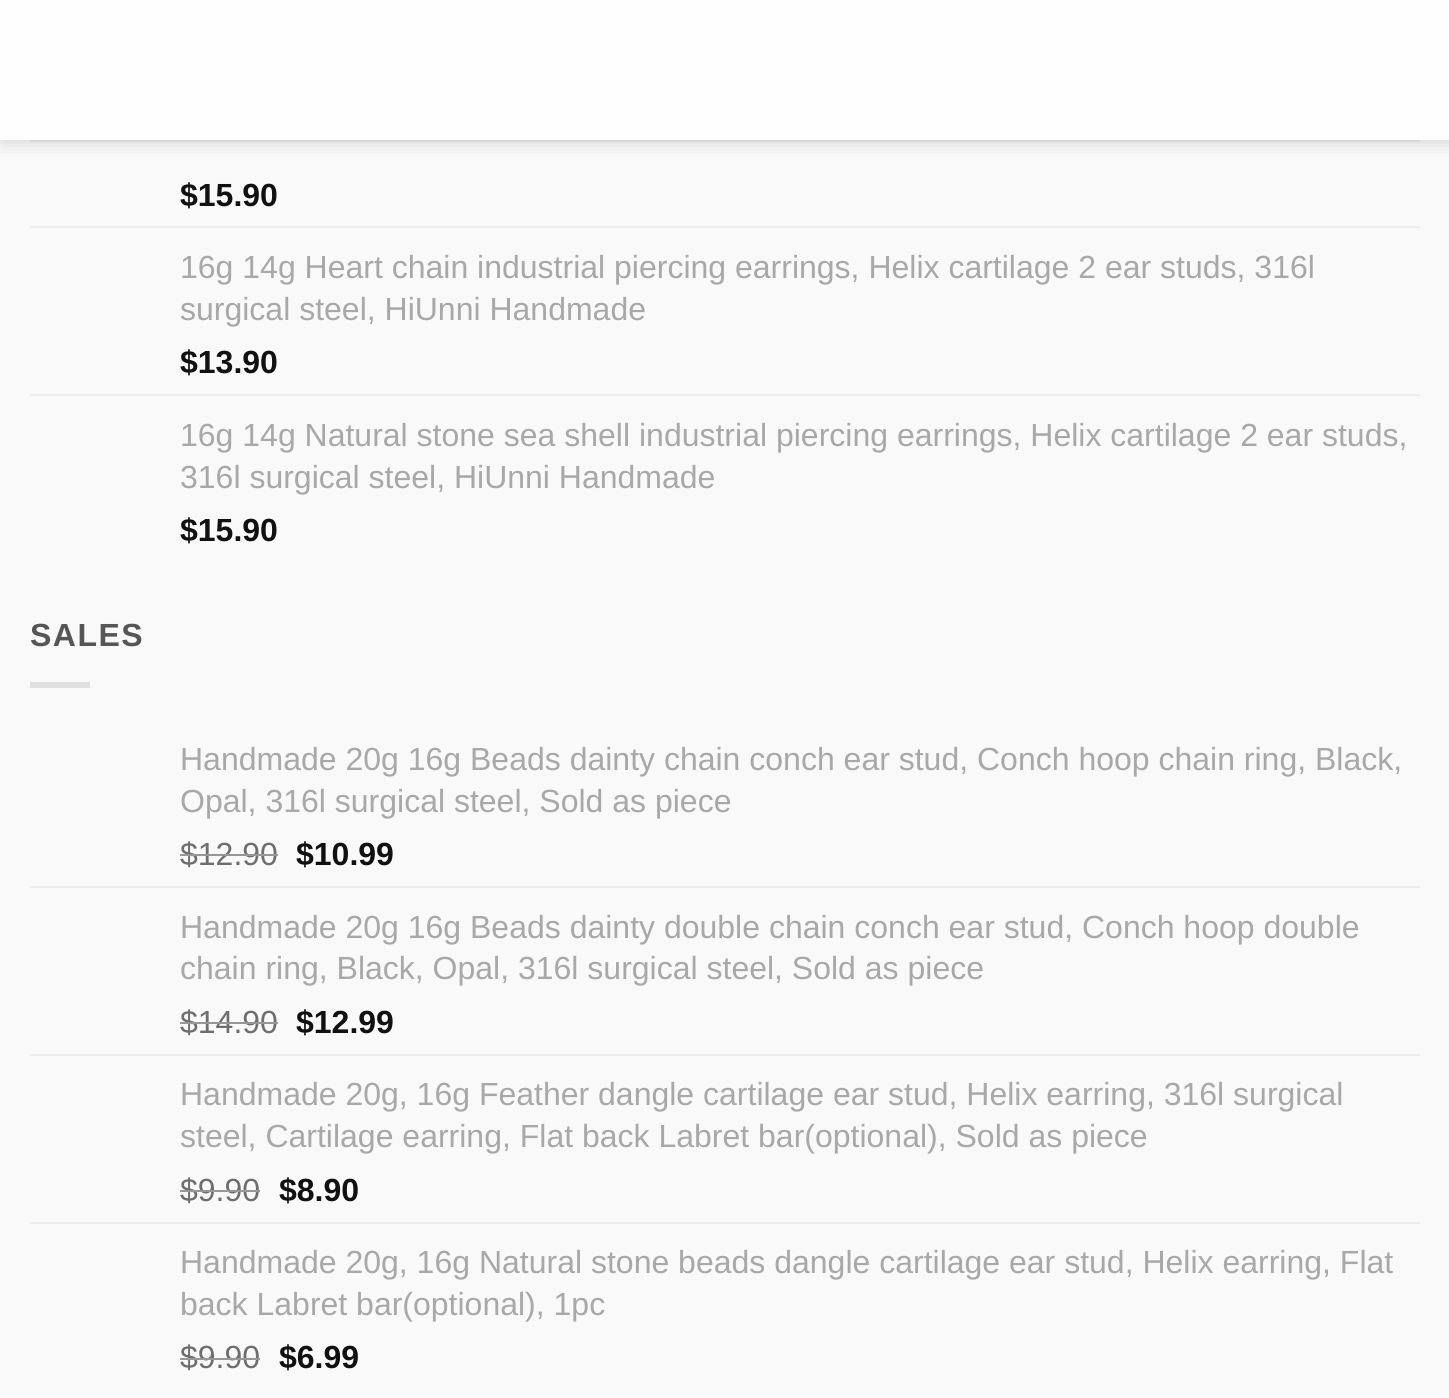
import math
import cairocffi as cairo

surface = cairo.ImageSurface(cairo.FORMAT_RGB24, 1449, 1398)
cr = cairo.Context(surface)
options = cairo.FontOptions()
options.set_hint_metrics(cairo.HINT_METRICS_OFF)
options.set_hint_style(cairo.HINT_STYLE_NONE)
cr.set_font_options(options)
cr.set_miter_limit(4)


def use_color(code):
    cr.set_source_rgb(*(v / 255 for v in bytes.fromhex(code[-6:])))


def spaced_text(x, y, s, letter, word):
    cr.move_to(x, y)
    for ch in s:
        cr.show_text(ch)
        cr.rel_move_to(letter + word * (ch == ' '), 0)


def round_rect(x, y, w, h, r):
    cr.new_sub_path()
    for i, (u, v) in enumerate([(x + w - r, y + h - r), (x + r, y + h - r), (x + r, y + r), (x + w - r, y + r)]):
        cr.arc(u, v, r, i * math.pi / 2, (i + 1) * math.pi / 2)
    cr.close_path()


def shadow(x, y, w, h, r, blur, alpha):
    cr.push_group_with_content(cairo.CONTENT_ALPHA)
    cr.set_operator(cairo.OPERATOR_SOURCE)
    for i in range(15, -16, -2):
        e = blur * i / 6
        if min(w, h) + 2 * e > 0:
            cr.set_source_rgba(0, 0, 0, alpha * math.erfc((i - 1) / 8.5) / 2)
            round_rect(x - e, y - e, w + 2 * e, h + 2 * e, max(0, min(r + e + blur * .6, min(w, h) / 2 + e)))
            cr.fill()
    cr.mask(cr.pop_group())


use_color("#f9f9f9")
cr.paint()
use_color("#ececec")
cr.rectangle(30, 58, 1390, 2)
cr.fill()
cr.save()
cr.rectangle(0, 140, 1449, 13)
cr.clip()
use_color("#000000")
shadow(2, 2, 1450, 140, 0, 10, 0.15)
cr.restore()
cr.set_source_rgba(1, 1, 1, 0.9)
cr.rectangle(0, 0, 1449, 140)
cr.fill()
cr.set_source_rgba(0.337, 0.337, 0.337, 0.1)
cr.rectangle(30, 140, 1390, 2)
cr.fill()
cr.select_font_face("Liberation Sans", cairo.FONT_SLANT_NORMAL, cairo.FONT_WEIGHT_BOLD)
cr.set_font_size(32)
use_color("#111111")
cr.move_to(180, 206)
cr.show_text("$15.90")
use_color("#ececec")
cr.rectangle(30, 226, 1390, 2)
cr.fill()
cr.select_font_face("Liberation Sans")
use_color("#a8a8a8")
cr.move_to(180, 278)
cr.show_text("16g 14g Heart chain industrial piercing earrings, Helix cartilage 2 ear studs, 316l")
cr.move_to(180, 320)
cr.show_text("surgical steel, HiUnni Handmade")
cr.select_font_face("Liberation Sans", cairo.FONT_SLANT_NORMAL, cairo.FONT_WEIGHT_BOLD)
use_color("#111111")
cr.move_to(180, 373)
cr.show_text("$13.90")
use_color("#ececec")
cr.rectangle(30, 394, 1390, 2)
cr.fill()
cr.select_font_face("Liberation Sans")
use_color("#a8a8a8")
cr.move_to(180, 446)
cr.show_text("16g 14g Natural stone sea shell industrial piercing earrings, Helix cartilage 2 ear studs,")
cr.move_to(180, 488)
cr.show_text("316l surgical steel, HiUnni Handmade")
cr.select_font_face("Liberation Sans", cairo.FONT_SLANT_NORMAL, cairo.FONT_WEIGHT_BOLD)
use_color("#111111")
cr.move_to(180, 541)
cr.show_text("$15.90")
use_color("#565656")
spaced_text(30, 646, "SALES", 1.5, 0)
use_color("#e0e0e0")
cr.rectangle(30, 682, 60, 6)
cr.fill()
cr.select_font_face("Liberation Sans")
use_color("#a8a8a8")
cr.move_to(180, 770)
cr.show_text("Handmade 20g 16g Beads dainty chain conch ear stud, Conch hoop chain ring, Black,")
cr.move_to(180, 812)
cr.show_text("Opal, 316l surgical steel, Sold as piece")
use_color("#6e6e6e")
cr.move_to(180, 865)
cr.show_text("$12.90")
use_color("#979797")
cr.rectangle(180, 854, 98, 2)
cr.fill()
cr.select_font_face("Liberation Sans", cairo.FONT_SLANT_NORMAL, cairo.FONT_WEIGHT_BOLD)
use_color("#111111")
cr.move_to(296, 865)
cr.show_text("$10.99")
use_color("#ececec")
cr.rectangle(30, 886, 1390, 2)
cr.fill()
cr.select_font_face("Liberation Sans")
use_color("#a8a8a8")
cr.move_to(180, 938)
cr.show_text("Handmade 20g 16g Beads dainty double chain conch ear stud, Conch hoop double")
cr.move_to(180, 979)
cr.show_text("chain ring, Black, Opal, 316l surgical steel, Sold as piece")
use_color("#6e6e6e")
cr.move_to(180, 1033)
cr.show_text("$14.90")
use_color("#979797")
cr.rectangle(180, 1022, 98, 2)
cr.fill()
cr.select_font_face("Liberation Sans", cairo.FONT_SLANT_NORMAL, cairo.FONT_WEIGHT_BOLD)
use_color("#111111")
cr.move_to(296, 1033)
cr.show_text("$12.99")
use_color("#ececec")
cr.rectangle(30, 1054, 1390, 2)
cr.fill()
cr.select_font_face("Liberation Sans")
use_color("#a8a8a8")
cr.move_to(180, 1105)
cr.show_text("Handmade 20g, 16g Feather dangle cartilage ear stud, Helix earring, 316l surgical")
cr.move_to(180, 1147)
cr.show_text("steel, Cartilage earring, Flat back Labret bar(optional), Sold as piece")
use_color("#6e6e6e")
cr.move_to(180, 1201)
cr.show_text("$9.90")
use_color("#979797")
cr.rectangle(180, 1190, 80, 2)
cr.fill()
cr.select_font_face("Liberation Sans", cairo.FONT_SLANT_NORMAL, cairo.FONT_WEIGHT_BOLD)
use_color("#111111")
cr.move_to(279, 1201)
cr.show_text("$8.90")
use_color("#ececec")
cr.rectangle(30, 1222, 1390, 2)
cr.fill()
cr.select_font_face("Liberation Sans")
use_color("#a8a8a8")
cr.move_to(180, 1273)
cr.show_text("Handmade 20g, 16g Natural stone beads dangle cartilage ear stud, Helix earring, Flat")
cr.move_to(180, 1315)
cr.show_text("back Labret bar(optional), 1pc")
use_color("#6e6e6e")
cr.move_to(180, 1368)
cr.show_text("$9.90")
use_color("#979797")
cr.rectangle(180, 1358, 80, 2)
cr.fill()
cr.select_font_face("Liberation Sans", cairo.FONT_SLANT_NORMAL, cairo.FONT_WEIGHT_BOLD)
use_color("#111111")
cr.move_to(279, 1368)
cr.show_text("$6.99")
surface.write_to_png("result.png")
